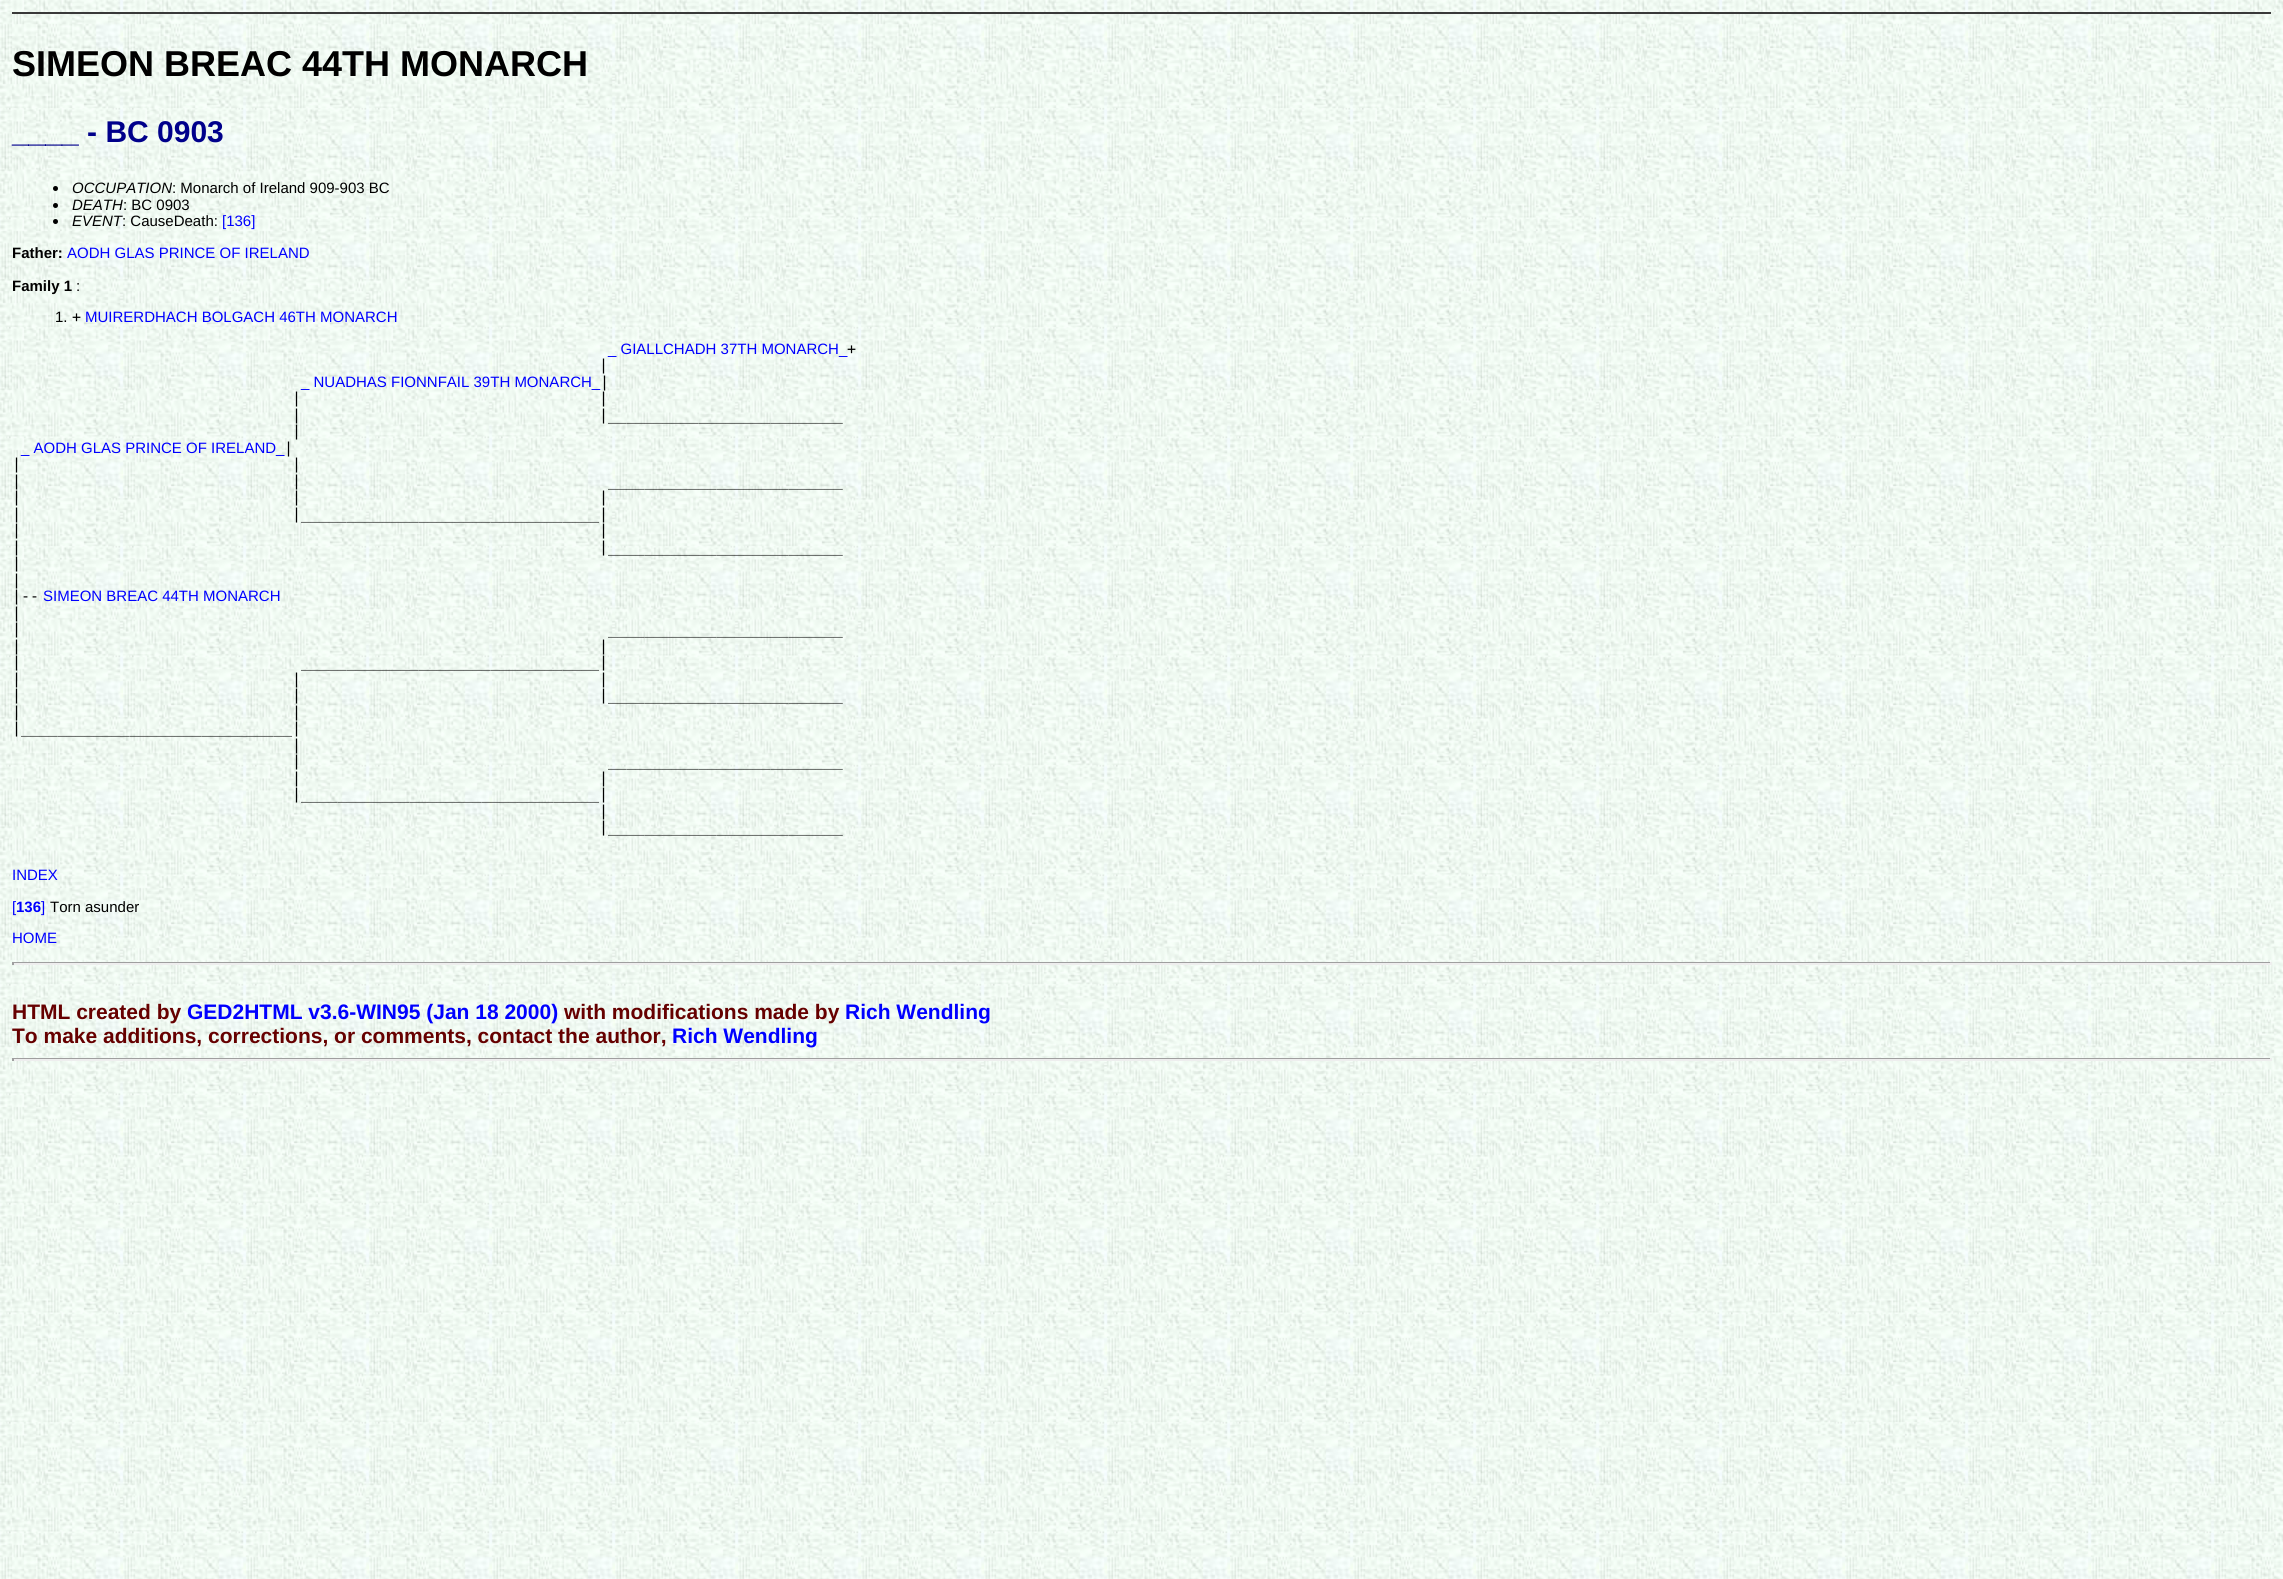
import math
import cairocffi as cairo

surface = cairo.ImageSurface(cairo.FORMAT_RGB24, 2283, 1579)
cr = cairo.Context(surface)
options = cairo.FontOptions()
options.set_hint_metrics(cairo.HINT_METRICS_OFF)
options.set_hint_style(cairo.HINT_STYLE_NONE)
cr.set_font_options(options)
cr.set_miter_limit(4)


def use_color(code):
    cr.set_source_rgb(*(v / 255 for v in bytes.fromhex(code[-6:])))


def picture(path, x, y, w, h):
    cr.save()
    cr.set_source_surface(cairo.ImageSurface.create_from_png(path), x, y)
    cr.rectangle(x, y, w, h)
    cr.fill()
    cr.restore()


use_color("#ffffff")
cr.paint()
picture("img1.png", 0, 0, 2283, 1579)
use_color("#393939")
cr.rectangle(12, 12, 2259, 2)
cr.fill()
cr.select_font_face("Liberation Sans", cairo.FONT_SLANT_NORMAL, cairo.FONT_WEIGHT_BOLD)
cr.set_font_size(36)
use_color("#000000")
cr.move_to(12, 76)
cr.show_text("SIMEON BREAC 44TH MONARCH")
cr.set_font_size(30)
use_color("#00008b")
cr.move_to(12, 142)
cr.show_text("____ - BC 0903")
use_color("#000000")
cr.new_path()
cr.arc(55.5, 188.5, 2.5, 0, 2 * math.pi)
cr.fill()
cr.select_font_face("Liberation Sans", cairo.FONT_SLANT_ITALIC)
cr.set_font_size(15)
cr.move_to(72, 193)
cr.show_text("OCCUPATION")
cr.select_font_face("Liberation Sans")
cr.move_to(172, 193)
cr.show_text(": Monarch of Ireland 909-903 BC")
cr.new_path()
cr.arc(55.5, 205.5, 2.5, 0, 2 * math.pi)
cr.fill()
cr.select_font_face("Liberation Sans", cairo.FONT_SLANT_ITALIC)
cr.move_to(72, 210)
cr.show_text("DEATH")
cr.select_font_face("Liberation Sans")
cr.move_to(123, 210)
cr.show_text(": BC 0903")
cr.new_path()
cr.arc(55.5, 221.5, 2.5, 0, 2 * math.pi)
cr.fill()
cr.select_font_face("Liberation Sans", cairo.FONT_SLANT_ITALIC)
cr.move_to(72, 226)
cr.show_text("EVENT")
cr.select_font_face("Liberation Sans")
cr.move_to(122, 226)
cr.show_text(": CauseDeath:")
use_color("#0000ff")
cr.move_to(222, 226)
cr.show_text("[136]")
cr.select_font_face("Liberation Sans", cairo.FONT_SLANT_NORMAL, cairo.FONT_WEIGHT_BOLD)
use_color("#000000")
cr.move_to(12, 258)
cr.show_text("Father:")
cr.select_font_face("Liberation Sans")
use_color("#0000ff")
cr.move_to(67, 258)
cr.show_text("AODH GLAS PRINCE OF IRELAND")
cr.select_font_face("Liberation Sans", cairo.FONT_SLANT_NORMAL, cairo.FONT_WEIGHT_BOLD)
use_color("#000000")
cr.move_to(12, 291)
cr.show_text("Family 1")
cr.select_font_face("Liberation Sans")
cr.move_to(76, 291)
cr.show_text(":")
cr.move_to(55, 322)
cr.show_text("1.")
cr.select_font_face("DejaVu Sans Mono")
cr.move_to(72, 322)
cr.show_text("+")
cr.select_font_face("Liberation Sans")
use_color("#0000ff")
cr.move_to(85, 322)
cr.show_text("MUIRERDHACH BOLGACH 46TH MONARCH")
cr.move_to(608, 354)
cr.show_text("_ GIALLCHADH 37TH MONARCH_")
cr.select_font_face("DejaVu Sans Mono")
use_color("#000000")
cr.move_to(847, 354)
cr.show_text("+")
cr.move_to(599, 370)
cr.show_text("|")
cr.select_font_face("Liberation Sans")
use_color("#0000ff")
cr.move_to(301, 387)
cr.show_text("_ NUADHAS FIONNFAIL 39TH MONARCH_")
cr.select_font_face("DejaVu Sans Mono")
use_color("#000000")
cr.move_to(600, 387)
cr.show_text("|")
cr.move_to(292, 403)
cr.show_text("|                                 |")
cr.move_to(292, 420)
cr.show_text("|                                 |__________________________")
cr.move_to(292, 436)
cr.show_text("|")
cr.select_font_face("Liberation Sans")
use_color("#0000ff")
cr.move_to(21, 453)
cr.show_text("_ AODH GLAS PRINCE OF IRELAND_")
cr.select_font_face("DejaVu Sans Mono")
use_color("#000000")
cr.move_to(284, 453)
cr.show_text("|")
cr.move_to(12, 469)
cr.show_text("|                              |")
cr.move_to(12, 486)
cr.show_text("|                              |                                  __________________________")
cr.move_to(12, 502)
cr.show_text("|                              |                                 |")
cr.move_to(12, 519)
cr.show_text("|                              |_________________________________|")
cr.move_to(12, 535)
cr.show_text("|                                                                |")
cr.move_to(12, 552)
cr.show_text("|                                                                |__________________________")
cr.move_to(12, 568)
cr.show_text("|")
cr.move_to(12, 585)
cr.show_text("|")
cr.move_to(12, 601)
cr.show_text("|--")
cr.select_font_face("Liberation Sans")
use_color("#0000ff")
cr.move_to(43, 601)
cr.show_text("SIMEON BREAC 44TH MONARCH")
cr.select_font_face("DejaVu Sans Mono")
use_color("#000000")
cr.move_to(12, 618)
cr.show_text("|")
cr.move_to(12, 634)
cr.show_text("|                                                                 __________________________")
cr.move_to(12, 651)
cr.show_text("|                                                                |")
cr.move_to(12, 667)
cr.show_text("|                               _________________________________|")
cr.move_to(12, 684)
cr.show_text("|                              |                                 |")
cr.move_to(12, 700)
cr.show_text("|                              |                                 |__________________________")
cr.move_to(12, 717)
cr.show_text("|                              |")
cr.move_to(12, 733)
cr.show_text("|______________________________|")
cr.move_to(292, 750)
cr.show_text("|")
cr.move_to(292, 766)
cr.show_text("|                                  __________________________")
cr.move_to(292, 783)
cr.show_text("|                                 |")
cr.move_to(292, 799)
cr.show_text("|_________________________________|")
cr.move_to(599, 816)
cr.show_text("|")
cr.move_to(599, 832)
cr.show_text("|__________________________")
cr.select_font_face("Liberation Sans")
use_color("#0000ff")
cr.move_to(12, 880)
cr.show_text("INDEX")
cr.move_to(12, 912)
cr.show_text("[")
cr.select_font_face("Liberation Sans", cairo.FONT_SLANT_NORMAL, cairo.FONT_WEIGHT_BOLD)
cr.move_to(16, 912)
cr.show_text("136")
cr.select_font_face("Liberation Sans")
cr.move_to(41, 912)
cr.show_text("]")
use_color("#000000")
cr.move_to(50, 912)
cr.show_text("Torn asunder")
use_color("#0000ff")
cr.move_to(12, 943)
cr.show_text("HOME")
use_color("#9f9f9f")
cr.rectangle(12, 962, 2259, 1)
cr.fill()
use_color("#eeeeee")
cr.rectangle(2270, 962, 2, 3)
cr.fill()
cr.rectangle(12, 963, 2259, 2)
cr.fill()
use_color("#9f9f9f")
cr.rectangle(12, 962, 2, 3)
cr.fill()
cr.select_font_face("Liberation Sans", cairo.FONT_SLANT_NORMAL, cairo.FONT_WEIGHT_BOLD)
cr.set_font_size(21)
use_color("#660000")
cr.move_to(12, 1019)
cr.show_text("HTML created by")
use_color("#0000ff")
cr.move_to(187, 1019)
cr.show_text("GED2HTML v3.6-WIN95 (Jan 18 2000)")
use_color("#660000")
cr.move_to(564, 1019)
cr.show_text("with modifications made by")
use_color("#0000ff")
cr.move_to(845, 1019)
cr.show_text("Rich Wendling")
use_color("#660000")
cr.move_to(12, 1043)
cr.show_text("To make additions, corrections, or comments, contact the author,")
use_color("#0000ff")
cr.move_to(672, 1043)
cr.show_text("Rich Wendling")
use_color("#9f9f9f")
cr.rectangle(12, 1058, 2259, 1)
cr.fill()
use_color("#eeeeee")
cr.rectangle(2270, 1058, 2, 3)
cr.fill()
cr.rectangle(12, 1059, 2259, 2)
cr.fill()
use_color("#9f9f9f")
cr.rectangle(12, 1058, 2, 3)
cr.fill()
surface.write_to_png("result.png")
